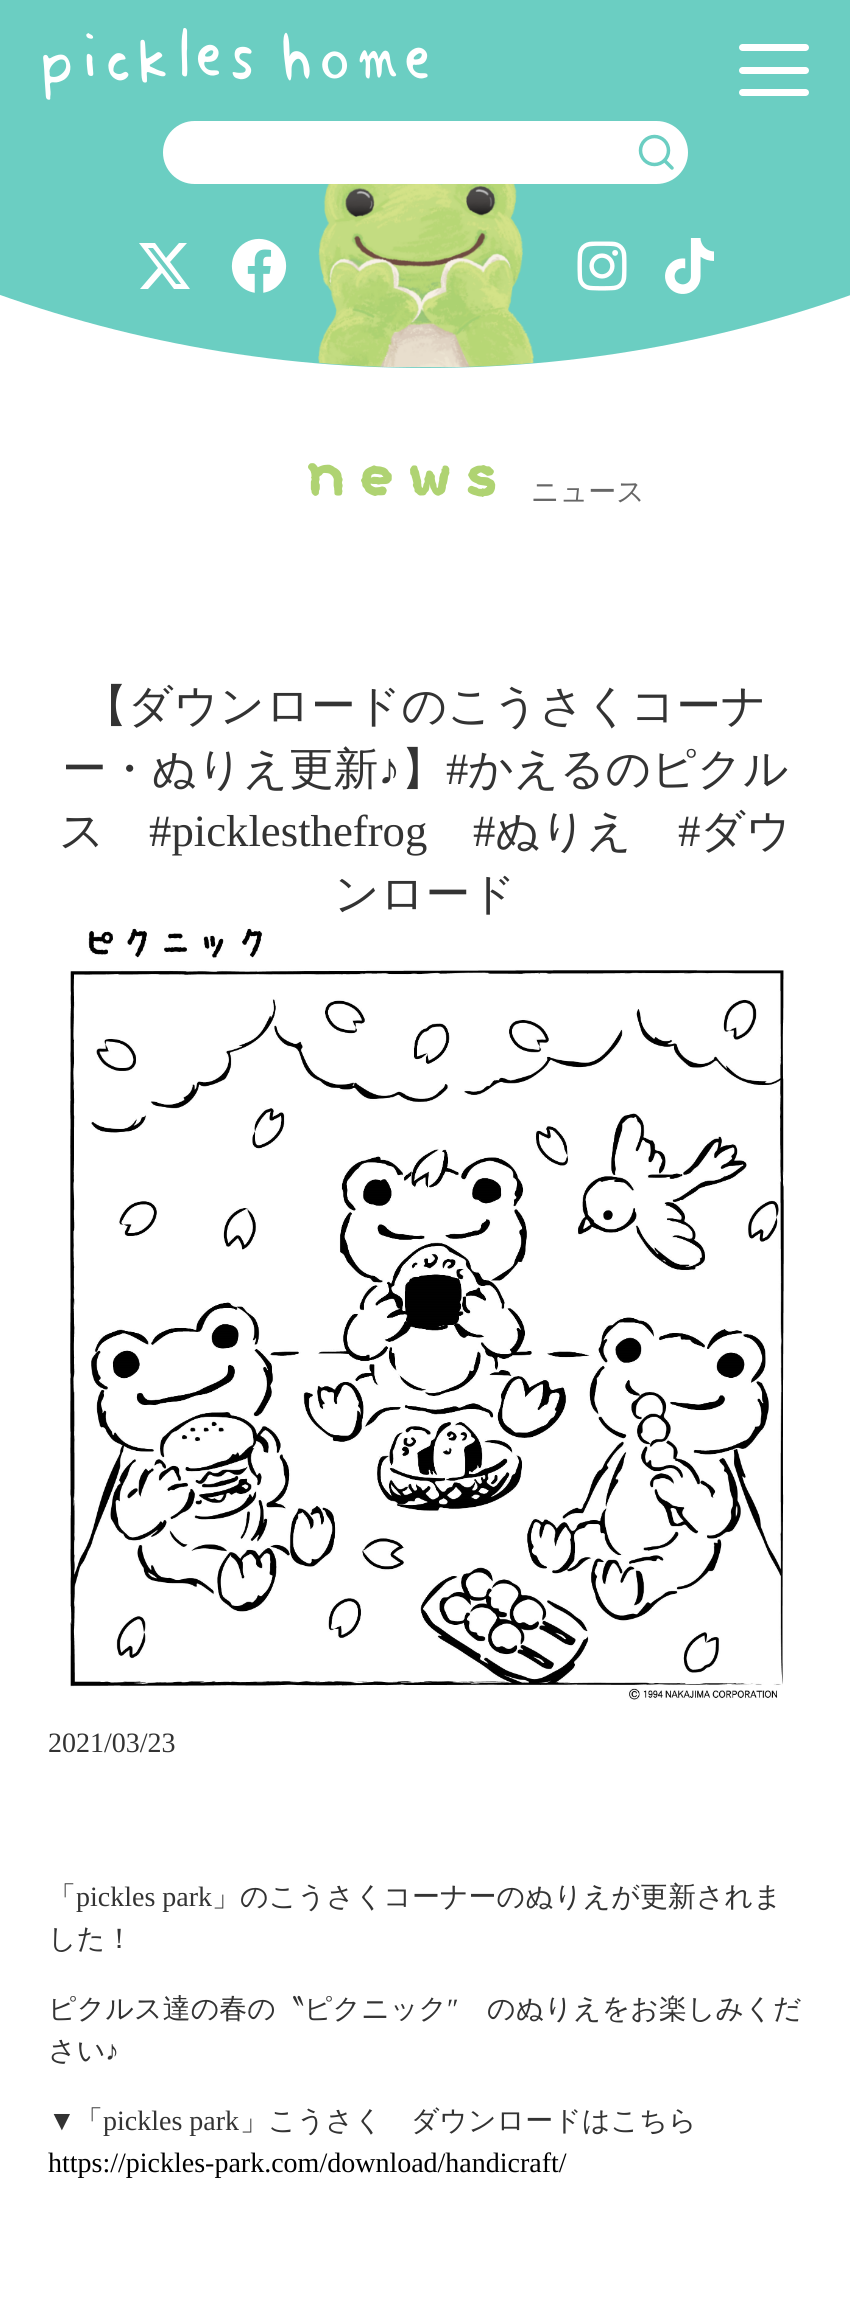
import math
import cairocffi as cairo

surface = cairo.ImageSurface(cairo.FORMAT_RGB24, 850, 2317)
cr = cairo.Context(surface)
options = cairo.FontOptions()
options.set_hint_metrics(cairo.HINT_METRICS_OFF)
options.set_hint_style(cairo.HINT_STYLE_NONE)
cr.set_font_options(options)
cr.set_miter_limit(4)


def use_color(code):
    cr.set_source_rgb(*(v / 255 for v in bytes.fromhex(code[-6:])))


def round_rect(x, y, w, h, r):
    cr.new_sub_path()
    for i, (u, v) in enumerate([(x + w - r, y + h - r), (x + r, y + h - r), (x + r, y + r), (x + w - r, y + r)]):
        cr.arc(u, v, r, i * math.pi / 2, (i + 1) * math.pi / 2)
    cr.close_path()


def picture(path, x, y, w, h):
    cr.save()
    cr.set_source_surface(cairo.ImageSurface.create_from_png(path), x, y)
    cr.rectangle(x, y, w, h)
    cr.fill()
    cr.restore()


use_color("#ffffff")
cr.paint()
use_color("#6bcec2")
round_rect(-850, -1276, 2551, 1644, 1275.5)
cr.fill()
picture("img1.png", 318, 184, 216, 184)
picture("img2.png", 43, 28, 385, 72)
use_color("#ffffff")
round_rect(739, 44, 70, 7, 3.5)
cr.fill()
round_rect(739, 67, 70, 7, 3.5)
cr.fill()
round_rect(739, 89, 70, 7, 3.5)
cr.fill()
round_rect(163, 121, 525, 63, 31.5)
cr.fill()
cr.arc(654.5, 150.5, 14, 0, 2 * math.pi)
use_color("#6bcec2")
cr.set_line_width(3.5)
cr.stroke()
cr.new_path()
cr.move_to(672, 168)
cr.line_to(664.5, 160.5)
cr.set_line_cap(cairo.LINE_CAP_ROUND)
cr.set_line_join(cairo.LINE_JOIN_ROUND)
cr.stroke()
use_color("#ffffff")
cr.new_path()
cr.move_to(179, 243)
cr.line_to(187, 243)
cr.line_to(170, 262)
cr.line_to(190, 289)
cr.line_to(174, 289)
cr.line_to(162, 273)
cr.line_to(148, 289)
cr.line_to(140, 289)
cr.line_to(158, 268)
cr.line_to(139, 243)
cr.line_to(155, 243)
cr.line_to(166, 258)
cr.close_path()
cr.move_to(176, 284)
cr.line_to(181, 284)
cr.line_to(153, 248)
cr.line_to(148, 248)
cr.close_path()
cr.fill()
picture("img3.png", 231, 238, 56, 55)
picture("img4.png", 577, 241, 50, 50)
picture("img5.png", 665, 238, 49, 56)
cr.select_font_face("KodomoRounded")
cr.set_font_size(73.5)
use_color("#afd372")
cr.move_to(308, 502)
cr.show_text("news")
cr.select_font_face("WenQuanYi Zen Hei Medium")
cr.set_font_size(28)
use_color("#666666")
cr.move_to(531, 501)
cr.show_text("ニュース")
cr.set_font_size(44.75)
use_color("#333333")
cr.move_to(83, 721)
cr.show_text("【ダウンロードのこうさくコーナ")
cr.move_to(62, 784)
cr.show_text("ー・ぬりえ更新")
cr.select_font_face("Liberation Serif")
cr.move_to(378, 784)
cr.show_text("♪")
cr.select_font_face("WenQuanYi Zen Hei Medium")
cr.move_to(401, 784)
cr.show_text("】")
cr.select_font_face("Liberation Serif")
cr.move_to(446, 784)
cr.show_text("#")
cr.select_font_face("WenQuanYi Zen Hei Medium")
cr.move_to(468, 784)
cr.show_text("かえるのピクル")
cr.move_to(59, 846)
cr.show_text("ス")
cr.select_font_face("Liberation Serif")
cr.move_to(149, 846)
cr.show_text("#picklesthefrog")
cr.move_to(473, 846)
cr.show_text("#")
cr.select_font_face("WenQuanYi Zen Hei Medium")
cr.move_to(495, 846)
cr.show_text("ぬりえ")
cr.select_font_face("Liberation Serif")
cr.move_to(678, 846)
cr.show_text("#")
cr.select_font_face("WenQuanYi Zen Hei Medium")
cr.move_to(700, 846)
cr.show_text("ダウ")
cr.move_to(334, 909)
cr.show_text("ンロード")
picture("img6.png", 70, 928, 714, 772)
cr.select_font_face("Liberation Serif")
cr.set_font_size(28)
cr.move_to(48, 1752)
cr.show_text("2021/03/23")
cr.select_font_face("WenQuanYi Zen Hei Medium")
cr.move_to(48, 1906)
cr.show_text("「")
cr.select_font_face("Liberation Serif")
cr.move_to(76, 1906)
cr.show_text("pickles park")
cr.select_font_face("WenQuanYi Zen Hei Medium")
cr.move_to(212, 1906)
cr.show_text("」のこうさくコーナーのぬりえが更新されま")
cr.move_to(48, 1948)
cr.show_text("した！")
cr.move_to(48, 2018)
cr.show_text("ピクルス達の春の〝ピクニック")
cr.select_font_face("Liberation Serif")
cr.move_to(447, 2018)
cr.show_text("″")
cr.select_font_face("WenQuanYi Zen Hei Medium")
cr.move_to(487, 2018)
cr.show_text("のぬりえをお楽しみくだ")
cr.move_to(48, 2060)
cr.show_text("さい")
cr.select_font_face("Liberation Serif")
cr.move_to(105, 2060)
cr.show_text("♪")
cr.move_to(48, 2130)
cr.show_text("▼")
cr.select_font_face("WenQuanYi Zen Hei Medium")
cr.move_to(75, 2130)
cr.show_text("「")
cr.select_font_face("Liberation Serif")
cr.move_to(103, 2130)
cr.show_text("pickles park")
cr.select_font_face("WenQuanYi Zen Hei Medium")
cr.move_to(240, 2130)
cr.show_text("」こうさく　ダウンロードはこちら")
cr.select_font_face("Liberation Serif")
use_color("#000000")
cr.move_to(48, 2172)
cr.show_text("https://pickles-park.com/download/handicraft/")
surface.write_to_png("result.png")
